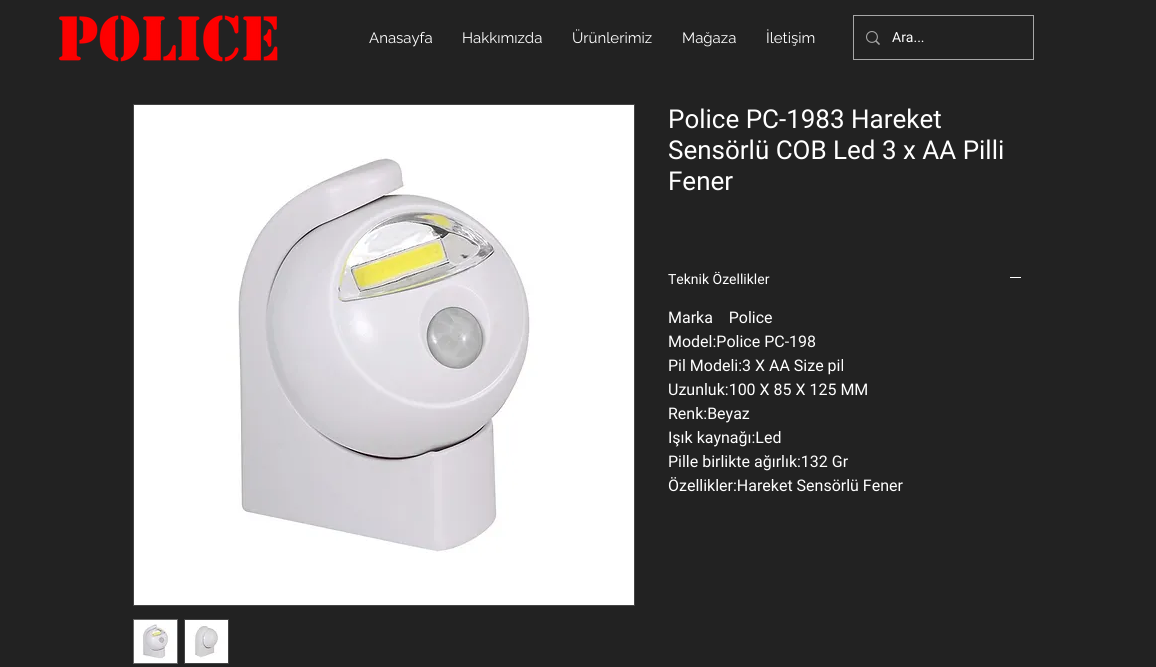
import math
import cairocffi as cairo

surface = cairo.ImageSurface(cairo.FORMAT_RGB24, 1156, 667)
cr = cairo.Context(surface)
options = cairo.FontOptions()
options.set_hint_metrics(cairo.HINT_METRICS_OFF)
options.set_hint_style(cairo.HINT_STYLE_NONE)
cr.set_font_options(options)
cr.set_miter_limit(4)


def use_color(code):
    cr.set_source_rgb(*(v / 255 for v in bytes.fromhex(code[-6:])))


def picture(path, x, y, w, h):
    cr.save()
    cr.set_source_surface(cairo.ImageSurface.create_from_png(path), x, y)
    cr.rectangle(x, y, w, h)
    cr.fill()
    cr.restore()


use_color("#222222")
cr.paint()
picture("img1.png", 58, 15, 220, 47)
cr.select_font_face("Raleway")
cr.set_font_size(15)
use_color("#ffffff")
cr.move_to(369, 43)
cr.show_text("Anasayfa")
cr.move_to(462, 43)
cr.show_text("Hakkımızda")
cr.move_to(572, 43)
cr.show_text("Ürünlerimiz")
cr.move_to(682, 43)
cr.show_text("Mağaza")
cr.move_to(766, 43)
cr.show_text("İletişim")
cr.rectangle(853.5, 15.5, 180, 44)
use_color("#a7a7a7")
cr.set_line_width(1)
cr.stroke()
picture("img2.png", 866, 31, 14, 14)
cr.select_font_face("Roboto")
cr.set_font_size(14)
use_color("#ffffff")
cr.move_to(892, 42)
cr.show_text("Ara...")
cr.rectangle(133.5, 104.5, 501, 501)
use_color("#444444")
cr.stroke()
picture("img3.png", 134, 105, 500, 500)
cr.rectangle(133.5, 619.5, 44, 44)
use_color("#666666")
cr.stroke()
picture("img4.png", 134, 620, 43, 43)
use_color("#444444")
cr.rectangle(184, 619, 45, 45)
cr.fill()
picture("img5.png", 185, 620, 43, 43)
cr.set_font_size(26)
use_color("#ffffff")
cr.move_to(668, 128)
cr.show_text("Police PC-1983 Hareket")
cr.move_to(668, 159)
cr.show_text("Sensörlü COB Led 3 x AA Pilli")
cr.move_to(668, 190)
cr.show_text("Fener")
cr.set_font_size(14)
cr.move_to(668, 284)
cr.show_text("Teknik Özellikler")
cr.rectangle(1010, 277, 11, 1)
cr.fill()
cr.set_font_size(16)
cr.move_to(668, 323)
cr.show_text("Marka    Police")
cr.move_to(668, 347)
cr.show_text("Model:Police PC-198")
cr.move_to(668, 371)
cr.show_text("Pil Modeli:3 X AA Size pil")
cr.move_to(668, 395)
cr.show_text("Uzunluk:100 X 85 X 125 MM")
cr.move_to(668, 419)
cr.show_text("Renk:Beyaz")
cr.move_to(668, 443)
cr.show_text("Işık kaynağı:Led")
cr.move_to(668, 467)
cr.show_text("Pille birlikte ağırlık:132 Gr")
cr.move_to(668, 491)
cr.show_text("Özellikler:Hareket Sensörlü Fener")
surface.write_to_png("result.png")
